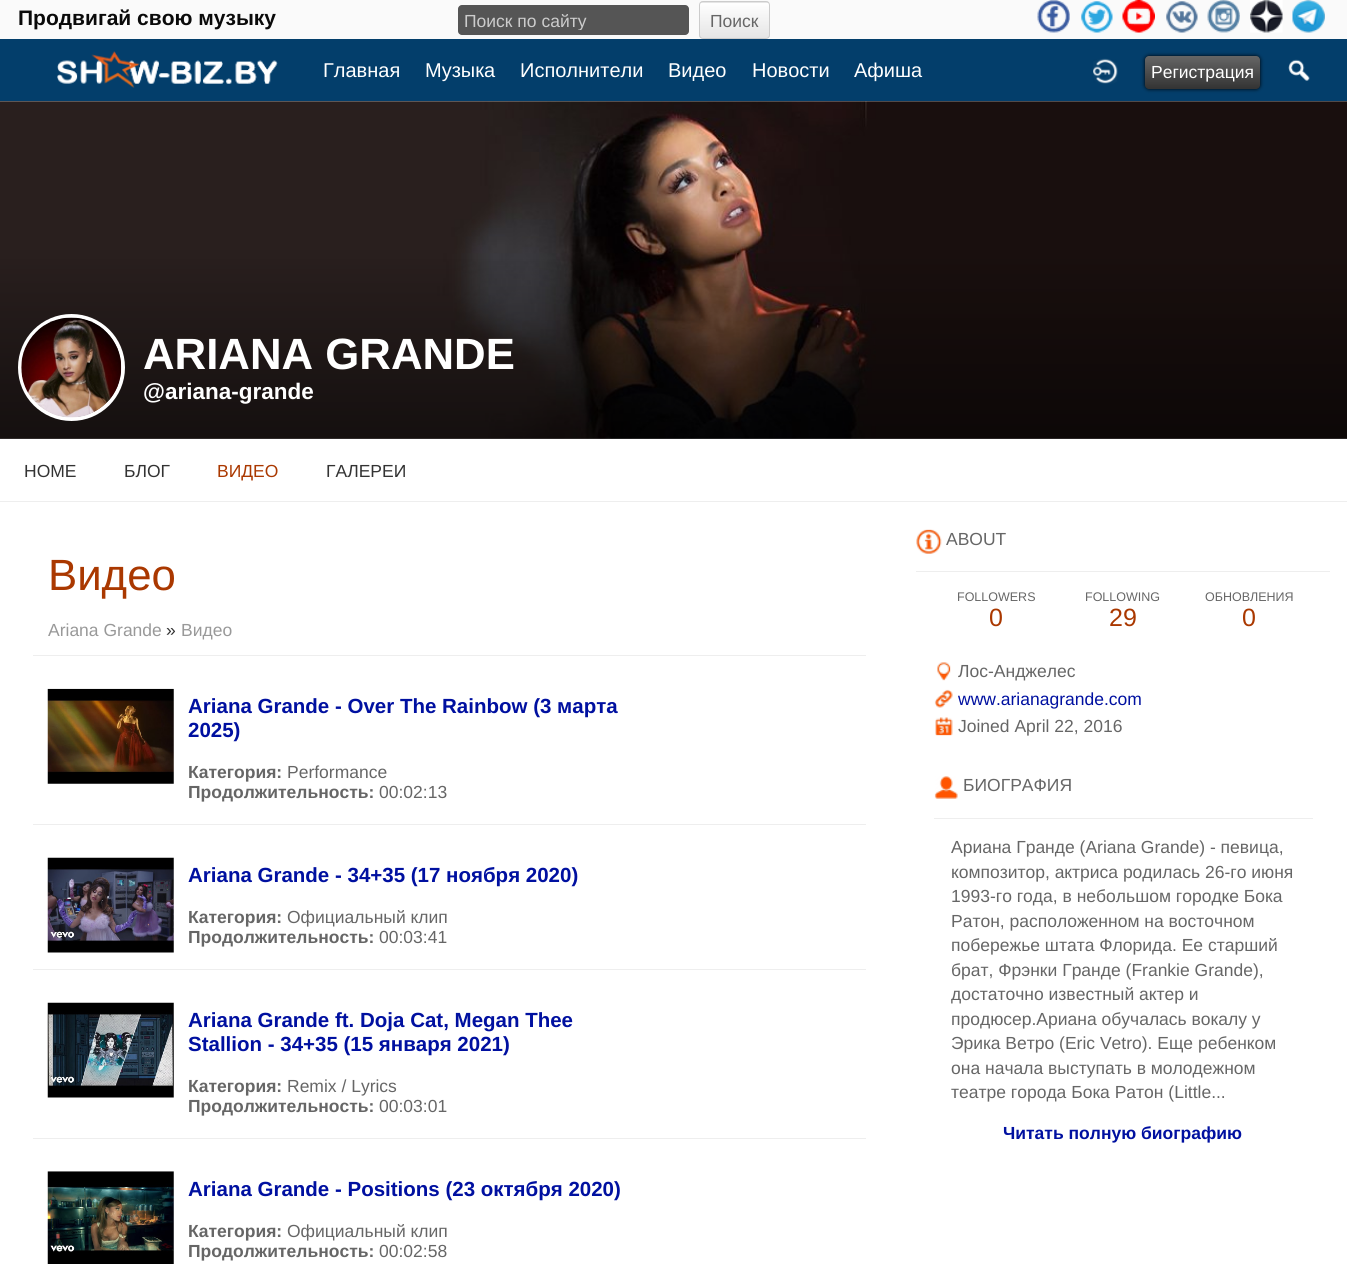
import math
import cairocffi as cairo

surface = cairo.ImageSurface(cairo.FORMAT_RGB24, 1347, 1264)
cr = cairo.Context(surface)
options = cairo.FontOptions()
options.set_hint_metrics(cairo.HINT_METRICS_OFF)
options.set_hint_style(cairo.HINT_STYLE_NONE)
cr.set_font_options(options)
cr.set_miter_limit(4)


def use_color(code):
    cr.set_source_rgb(*(v / 255 for v in bytes.fromhex(code[-6:])))


def round_rect(x, y, w, h, r):
    cr.new_sub_path()
    for i, (u, v) in enumerate([(x + w - r, y + h - r), (x + r, y + h - r), (x + r, y + r), (x + w - r, y + r)]):
        cr.arc(u, v, r, i * math.pi / 2, (i + 1) * math.pi / 2)
    cr.close_path()


def shadow(x, y, w, h, r, blur, alpha):
    cr.push_group_with_content(cairo.CONTENT_ALPHA)
    cr.set_operator(cairo.OPERATOR_SOURCE)
    for i in range(15, -16, -2):
        e = blur * i / 6
        if min(w, h) + 2 * e > 0:
            cr.set_source_rgba(0, 0, 0, alpha * math.erfc((i - 1) / 8.5) / 2)
            round_rect(x - e, y - e, w + 2 * e, h + 2 * e, max(0, min(r + e + blur * .6, min(w, h) / 2 + e)))
            cr.fill()
    cr.mask(cr.pop_group())


def picture(path, x, y, w, h):
    cr.save()
    cr.set_source_surface(cairo.ImageSurface.create_from_png(path), x, y)
    cr.rectangle(x, y, w, h)
    cr.fill()
    cr.restore()


use_color("#fafafa")
cr.paint()
cr.select_font_face("Liberation Sans", cairo.FONT_SLANT_NORMAL, cairo.FONT_WEIGHT_BOLD)
cr.set_font_size(21)
use_color("#0a0a0a")
cr.move_to(18, 25)
cr.show_text("Продвигай свою музыку")
use_color("#555555")
round_rect(458, 5, 231, 30, 4)
cr.fill()
cr.save()
cr.rectangle(464, 10, 219, 20)
cr.clip()
cr.select_font_face("Liberation Sans")
cr.set_font_size(17.5)
use_color("#cccccc")
cr.move_to(464, 27)
cr.show_text("Поиск по сайту")
cr.restore()
cr.save()
round_rect(699, 1, 71, 38, 4)
cr.clip()
gradient = cairo.LinearGradient(734, -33, 734, 2.5)
gradient.add_color_stop_rgba(0, 1, 1, 1, 1)
gradient.add_color_stop_rgba(1, 0.898, 0.898, 0.898, 1)
cr.set_source(gradient)
cr.rectangle(699, 1, 71, 2)
cr.fill()
gradient = cairo.LinearGradient(734, 2.5, 734, 38)
gradient.add_color_stop_rgba(0, 1, 1, 1, 1)
gradient.add_color_stop_rgba(1, 0.898, 0.898, 0.898, 1)
cr.set_source(gradient)
cr.rectangle(699, 3, 71, 35)
cr.fill()
cr.restore()
round_rect(699.5, 1.5, 70, 37, 3.5)
use_color("#cccccc")
cr.set_line_width(1)
cr.stroke()
cr.select_font_face("Liberation Sans")
cr.set_font_size(17.5)
use_color("#666666")
cr.move_to(710, 27)
cr.show_text("Поиск")
picture("img1.png", 1037, 0, 33, 33)
picture("img2.png", 1081, 1, 32, 32)
picture("img3.png", 1122, 0, 33, 33)
picture("img4.png", 1166, 1, 32, 32)
picture("img5.png", 1207, 0, 33, 33)
picture("img6.png", 1250, 0, 33, 33)
picture("img7.png", 1292, 0, 33, 33)
use_color("#033e6b")
cr.rectangle(0, 39, 1347, 62)
cr.fill()
picture("img8.png", 57, 51, 221, 37)
cr.set_font_size(20)
use_color("#ffffff")
cr.move_to(323, 77)
cr.show_text("Главная")
cr.move_to(425, 77)
cr.show_text("Музыка")
cr.move_to(520, 77)
cr.show_text("Исполнители")
cr.move_to(668, 77)
cr.show_text("Видео")
cr.move_to(752, 77)
cr.show_text("Новости")
cr.move_to(854, 77)
cr.show_text("Афиша")
picture("img9.png", 1093, 58, 25, 26)
use_color("#000000")
shadow(1145, 56, 115, 33, 4, 2, 1)
gradient = cairo.LinearGradient(1203, 56, 1203, 89)
gradient.add_color_stop_rgba(0, 0.4, 0.4, 0.4, 1)
gradient.add_color_stop_rgba(1, 0.2, 0.2, 0.2, 1)
cr.set_source(gradient)
round_rect(1145, 56, 115, 33, 4)
cr.fill()
cr.set_font_size(17.5)
use_color("#ffffff")
cr.move_to(1151, 78)
cr.show_text("Регистрация")
picture("img10.png", 1288, 59, 22, 22)
cr.rectangle(0, 101, 1347, 1163)
cr.fill()
picture("img11.png", 0, 101, 1347, 338)
gradient = cairo.LinearGradient(674, 251, 674, 439)
gradient.add_color_stop_rgba(0, 0, 0, 0, 0)
gradient.add_color_stop_rgba(1, 0, 0, 0, 0.5)
cr.set_source(gradient)
cr.rectangle(0, 259, 1347, 180)
cr.fill()
cr.arc(71.5, 367.5, 51.5, 0, 2 * math.pi)
use_color("#ffffff")
cr.set_line_width(4)
cr.stroke()
picture("img12.png", 21, 317, 101, 101)
cr.select_font_face("Liberation Sans", cairo.FONT_SLANT_NORMAL, cairo.FONT_WEIGHT_BOLD)
cr.set_font_size(43.75)
cr.move_to(143, 369)
cr.show_text("ARIANA GRANDE")
cr.set_font_size(22.5)
cr.move_to(143, 399)
cr.show_text("@ariana-grande")
use_color("#eeeeee")
cr.rectangle(0, 501, 1347, 1)
cr.fill()
cr.select_font_face("Liberation Sans")
cr.set_font_size(17.5)
use_color("#333333")
cr.move_to(24, 477)
cr.show_text("HOME")
cr.move_to(124, 477)
cr.show_text("БЛОГ")
use_color("#aa3800")
cr.move_to(217, 477)
cr.show_text("ВИДЕО")
use_color("#333333")
cr.move_to(326, 477)
cr.show_text("ГАЛЕРЕИ")
use_color("#eeeeee")
cr.rectangle(33, 655, 833, 1)
cr.fill()
cr.set_font_size(43.75)
use_color("#aa3800")
cr.move_to(48, 590)
cr.show_text("Видео")
cr.set_font_size(17.5)
use_color("#999999")
cr.move_to(48, 636)
cr.show_text("Ariana Grande")
use_color("#333333")
cr.move_to(166, 636)
cr.show_text("»")
use_color("#999999")
cr.move_to(181, 636)
cr.show_text("Видео")
use_color("#eeeeee")
cr.rectangle(33, 824, 833, 1)
cr.fill()
picture("img13.png", 47, 688, 127, 96)
cr.select_font_face("Liberation Sans", cairo.FONT_SLANT_NORMAL, cairo.FONT_WEIGHT_BOLD)
cr.set_font_size(20.5)
use_color("#0010a0")
cr.move_to(188, 713)
cr.show_text("Ariana Grande - Over The Rainbow (3 марта")
cr.move_to(188, 737)
cr.show_text("2025)")
cr.set_font_size(17.5)
use_color("#666666")
cr.move_to(188, 778)
cr.show_text("Категория:")
cr.select_font_face("Liberation Sans")
cr.move_to(287, 778)
cr.show_text("Performance")
cr.select_font_face("Liberation Sans", cairo.FONT_SLANT_NORMAL, cairo.FONT_WEIGHT_BOLD)
cr.move_to(188, 798)
cr.show_text("Продолжительность:")
cr.select_font_face("Liberation Sans")
cr.move_to(379, 798)
cr.show_text("00:02:13")
use_color("#eeeeee")
cr.rectangle(33, 969, 833, 1)
cr.fill()
picture("img14.png", 47, 857, 127, 96)
cr.select_font_face("Liberation Sans", cairo.FONT_SLANT_NORMAL, cairo.FONT_WEIGHT_BOLD)
cr.set_font_size(20.5)
use_color("#0010a0")
cr.move_to(188, 882)
cr.show_text("Ariana Grande - 34+35 (17 ноября 2020)")
cr.set_font_size(17.5)
use_color("#666666")
cr.move_to(188, 923)
cr.show_text("Категория:")
cr.select_font_face("Liberation Sans")
cr.move_to(287, 923)
cr.show_text("Официальный клип")
cr.select_font_face("Liberation Sans", cairo.FONT_SLANT_NORMAL, cairo.FONT_WEIGHT_BOLD)
cr.move_to(188, 943)
cr.show_text("Продолжительность:")
cr.select_font_face("Liberation Sans")
cr.move_to(379, 943)
cr.show_text("00:03:41")
use_color("#eeeeee")
cr.rectangle(33, 1138, 833, 1)
cr.fill()
picture("img15.png", 47, 1002, 127, 96)
cr.select_font_face("Liberation Sans", cairo.FONT_SLANT_NORMAL, cairo.FONT_WEIGHT_BOLD)
cr.set_font_size(20.5)
use_color("#0010a0")
cr.move_to(188, 1027)
cr.show_text("Ariana Grande ft. Doja Cat, Megan Thee")
cr.move_to(188, 1051)
cr.show_text("Stallion - 34+35 (15 января 2021)")
cr.set_font_size(17.5)
use_color("#666666")
cr.move_to(188, 1092)
cr.show_text("Категория:")
cr.select_font_face("Liberation Sans")
cr.move_to(287, 1092)
cr.show_text("Remix / Lyrics")
cr.select_font_face("Liberation Sans", cairo.FONT_SLANT_NORMAL, cairo.FONT_WEIGHT_BOLD)
cr.move_to(188, 1112)
cr.show_text("Продолжительность:")
cr.select_font_face("Liberation Sans")
cr.move_to(379, 1112)
cr.show_text("00:03:01")
picture("img16.png", 47, 1171, 127, 93)
cr.select_font_face("Liberation Sans", cairo.FONT_SLANT_NORMAL, cairo.FONT_WEIGHT_BOLD)
cr.set_font_size(20.5)
use_color("#0010a0")
cr.move_to(188, 1196)
cr.show_text("Ariana Grande - Positions (23 октября 2020)")
cr.set_font_size(17.5)
use_color("#666666")
cr.move_to(188, 1237)
cr.show_text("Категория:")
cr.select_font_face("Liberation Sans")
cr.move_to(287, 1237)
cr.show_text("Официальный клип")
cr.select_font_face("Liberation Sans", cairo.FONT_SLANT_NORMAL, cairo.FONT_WEIGHT_BOLD)
cr.move_to(188, 1257)
cr.show_text("Продолжительность:")
cr.select_font_face("Liberation Sans")
cr.move_to(379, 1257)
cr.show_text("00:02:58")
use_color("#eeeeee")
cr.rectangle(916, 571, 414, 1)
cr.fill()
picture("img17.png", 916, 529, 26, 25)
use_color("#666666")
cr.move_to(946, 545)
cr.show_text("ABOUT")
cr.set_font_size(12.5)
cr.move_to(957, 601)
cr.show_text("FOLLOWERS")
cr.set_font_size(25)
use_color("#aa3800")
cr.move_to(989, 626)
cr.show_text("0")
cr.set_font_size(12.5)
use_color("#666666")
cr.move_to(1085, 601)
cr.show_text("FOLLOWING")
cr.set_font_size(25)
use_color("#aa3800")
cr.move_to(1109, 626)
cr.show_text("29")
cr.set_font_size(12.5)
use_color("#666666")
cr.move_to(1205, 601)
cr.show_text("ОБНОВЛЕНИЯ")
cr.set_font_size(25)
use_color("#aa3800")
cr.move_to(1242, 626)
cr.show_text("0")
picture("img18.png", 937, 662, 14, 19)
cr.set_font_size(17.5)
use_color("#666666")
cr.move_to(958, 677)
cr.show_text("Лос-Анджелес")
picture("img19.png", 934, 689, 19, 19)
use_color("#0010a0")
cr.move_to(958, 705)
cr.show_text("www.arianagrande.com")
picture("img20.png", 935, 717, 18, 19)
use_color("#666666")
cr.move_to(958, 732)
cr.show_text("Joined April 22, 2016")
use_color("#eeeeee")
cr.rectangle(934, 818, 379, 1)
cr.fill()
picture("img21.png", 934, 776, 24, 23)
use_color("#666666")
cr.move_to(963, 791)
cr.show_text("БИОГРАФИЯ")
cr.move_to(951, 853)
cr.show_text("Ариана Гранде (Ariana Grande) - певица,")
cr.move_to(951, 878)
cr.show_text("композитор, актриса родилась 26-го июня")
cr.move_to(951, 902)
cr.show_text("1993-го года, в небольшом городке Бока")
cr.move_to(951, 927)
cr.show_text("Ратон, расположенном на восточном")
cr.move_to(951, 951)
cr.show_text("побережье штата Флорида. Ее старший")
cr.move_to(951, 976)
cr.show_text("брат, Фрэнки Гранде (Frankie Grande),")
cr.move_to(951, 1000)
cr.show_text("достаточно известный актер и")
cr.move_to(951, 1025)
cr.show_text("продюсер.Ариана обучалась вокалу у")
cr.move_to(951, 1049)
cr.show_text("Эрика Ветро (Eric Vetro). Еще ребенком")
cr.move_to(951, 1074)
cr.show_text("она начала выступать в молодежном")
cr.move_to(951, 1098)
cr.show_text("театре города Бока Ратон (Little...")
cr.select_font_face("Liberation Sans", cairo.FONT_SLANT_NORMAL, cairo.FONT_WEIGHT_BOLD)
use_color("#0010a0")
cr.move_to(1003, 1139)
cr.show_text("Читать полную биографию")
surface.write_to_png("result.png")
